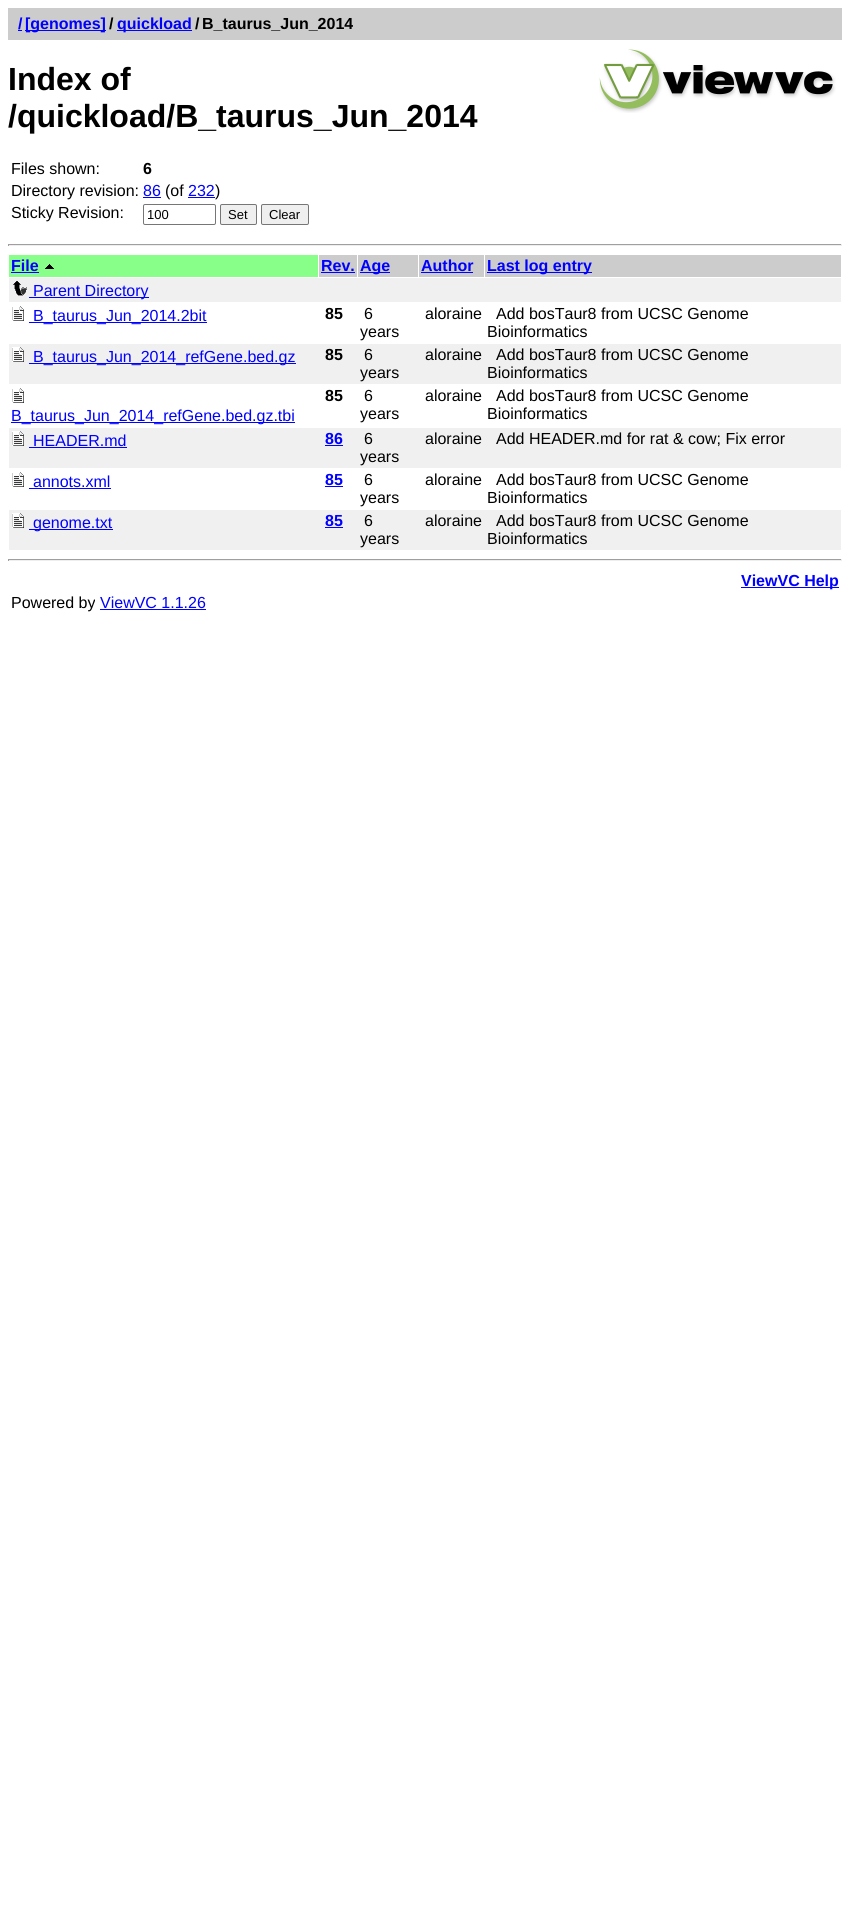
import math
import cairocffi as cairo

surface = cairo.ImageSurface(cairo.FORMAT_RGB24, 850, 1924)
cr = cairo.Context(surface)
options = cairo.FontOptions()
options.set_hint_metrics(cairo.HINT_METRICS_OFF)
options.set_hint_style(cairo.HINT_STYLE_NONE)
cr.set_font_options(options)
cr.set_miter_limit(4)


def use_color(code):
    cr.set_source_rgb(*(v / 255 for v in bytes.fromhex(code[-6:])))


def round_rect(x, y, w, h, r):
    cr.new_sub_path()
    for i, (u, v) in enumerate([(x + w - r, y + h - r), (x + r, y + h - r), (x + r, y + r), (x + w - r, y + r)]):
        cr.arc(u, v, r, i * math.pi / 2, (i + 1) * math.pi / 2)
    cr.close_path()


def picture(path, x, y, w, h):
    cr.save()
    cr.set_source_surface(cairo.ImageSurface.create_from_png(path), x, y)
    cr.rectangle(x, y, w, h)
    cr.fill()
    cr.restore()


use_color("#ffffff")
cr.paint()
use_color("#cccccc")
cr.rectangle(8, 8, 834, 32)
cr.fill()
cr.select_font_face("Liberation Sans", cairo.FONT_SLANT_NORMAL, cairo.FONT_WEIGHT_BOLD)
cr.set_font_size(16)
use_color("#0000ff")
cr.move_to(18, 29)
cr.show_text("/")
cr.rectangle(18, 30, 4, 1)
cr.fill()
cr.rectangle(25, 30, 81, 1)
cr.fill()
cr.move_to(25, 29)
cr.show_text("[genomes]")
use_color("#000000")
cr.move_to(109, 29)
cr.show_text("/")
use_color("#0000ff")
cr.rectangle(117, 30, 75, 1)
cr.fill()
cr.move_to(117, 29)
cr.show_text("quickload")
use_color("#000000")
cr.move_to(195, 29)
cr.show_text("/")
cr.move_to(202, 29)
cr.show_text("B_taurus_Jun_2014")
cr.set_font_size(32)
cr.move_to(8, 90)
cr.show_text("Index of")
cr.move_to(8, 127)
cr.show_text("/quickload/B_taurus_Jun_2014")
picture("img1.png", 599, 49, 237, 64)
cr.select_font_face("Liberation Sans")
cr.set_font_size(16)
cr.move_to(11, 174)
cr.show_text("Files shown:")
cr.select_font_face("Liberation Sans", cairo.FONT_SLANT_NORMAL, cairo.FONT_WEIGHT_BOLD)
cr.move_to(143, 174)
cr.show_text("6")
cr.select_font_face("Liberation Sans")
cr.move_to(11, 196)
cr.show_text("Directory revision:")
use_color("#0000ff")
cr.move_to(143, 196)
cr.show_text("86")
cr.rectangle(143, 197, 18, 1)
cr.fill()
use_color("#000000")
cr.move_to(165, 196)
cr.show_text("(of")
use_color("#0000ff")
cr.move_to(188, 196)
cr.show_text("232")
cr.rectangle(188, 197, 27, 1)
cr.fill()
use_color("#000000")
cr.move_to(215, 196)
cr.show_text(")")
cr.move_to(11, 218)
cr.show_text("Sticky Revision:")
round_rect(143.5, 204.5, 72, 20, 1.5)
use_color("#767676")
cr.set_line_width(1)
cr.stroke()
cr.set_font_size(13)
use_color("#000000")
cr.move_to(147, 219)
cr.show_text("100")
use_color("#efefef")
round_rect(220.5, 204.5, 36, 20, 1.5)
cr.fill_preserve()
use_color("#767676")
cr.stroke()
use_color("#000000")
cr.move_to(228, 219)
cr.show_text("Set")
use_color("#efefef")
round_rect(261.5, 204.5, 47, 20, 1.5)
cr.fill_preserve()
use_color("#767676")
cr.stroke()
use_color("#000000")
cr.move_to(269, 219)
cr.show_text("Clear")
use_color("#9f9f9f")
cr.rectangle(8, 244, 834, 1)
cr.fill()
use_color("#eeeeee")
cr.rectangle(841, 244, 1, 2)
cr.fill()
cr.rectangle(8, 245, 834, 1)
cr.fill()
use_color("#9f9f9f")
cr.rectangle(8, 244, 1, 2)
cr.fill()
use_color("#88ff88")
cr.rectangle(9, 255, 309, 22)
cr.fill()
cr.select_font_face("Liberation Sans", cairo.FONT_SLANT_NORMAL, cairo.FONT_WEIGHT_BOLD)
cr.set_font_size(16)
use_color("#0000ff")
cr.move_to(11, 271)
cr.show_text("File")
cr.rectangle(11, 272, 28, 1)
cr.fill()
picture("img2.png", 45, 264, 9, 5)
use_color("#cccccc")
cr.rectangle(319, 255, 38, 22)
cr.fill()
use_color("#0000ff")
cr.move_to(321, 271)
cr.show_text("Rev.")
cr.rectangle(321, 272, 34, 1)
cr.fill()
use_color("#cccccc")
cr.rectangle(358, 255, 60, 22)
cr.fill()
use_color("#0000ff")
cr.rectangle(360, 272, 30, 1)
cr.fill()
cr.move_to(360, 271)
cr.show_text("Age")
use_color("#cccccc")
cr.rectangle(419, 255, 65, 22)
cr.fill()
use_color("#0000ff")
cr.move_to(421, 271)
cr.show_text("Author")
cr.rectangle(421, 272, 52, 1)
cr.fill()
use_color("#cccccc")
cr.rectangle(485, 255, 356, 22)
cr.fill()
use_color("#0000ff")
cr.rectangle(487, 272, 105, 1)
cr.fill()
cr.move_to(487, 271)
cr.show_text("Last log entry")
use_color("#f0f0f0")
cr.rectangle(9, 278, 832, 24)
cr.fill()
picture("img3.png", 13, 281, 14, 15)
use_color("#0000ff")
cr.rectangle(29, 297, 120, 1)
cr.fill()
cr.select_font_face("Liberation Sans")
cr.move_to(33, 296)
cr.show_text("Parent Directory")
picture("img4.png", 12, 306, 12, 15)
cr.rectangle(29, 322, 178, 1)
cr.fill()
cr.move_to(33, 321)
cr.show_text("B_taurus_Jun_2014.2bit")
cr.select_font_face("Liberation Sans", cairo.FONT_SLANT_NORMAL, cairo.FONT_WEIGHT_BOLD)
use_color("#000000")
cr.move_to(325, 319)
cr.show_text("85")
cr.select_font_face("Liberation Sans")
cr.move_to(364, 319)
cr.show_text("6")
cr.move_to(360, 337)
cr.show_text("years")
cr.move_to(425, 319)
cr.show_text("aloraine")
cr.move_to(496, 319)
cr.show_text("Add bosTaur8 from UCSC Genome")
cr.move_to(487, 337)
cr.show_text("Bioinformatics")
use_color("#f0f0f0")
cr.rectangle(9, 344, 832, 40)
cr.fill()
picture("img5.png", 12, 347, 12, 15)
use_color("#0000ff")
cr.rectangle(29, 363, 267, 1)
cr.fill()
cr.move_to(33, 362)
cr.show_text("B_taurus_Jun_2014_refGene.bed.gz")
cr.select_font_face("Liberation Sans", cairo.FONT_SLANT_NORMAL, cairo.FONT_WEIGHT_BOLD)
use_color("#000000")
cr.move_to(325, 360)
cr.show_text("85")
cr.select_font_face("Liberation Sans")
cr.move_to(364, 360)
cr.show_text("6")
cr.move_to(360, 378)
cr.show_text("years")
cr.move_to(425, 360)
cr.show_text("aloraine")
cr.move_to(496, 360)
cr.show_text("Add bosTaur8 from UCSC Genome")
cr.move_to(487, 378)
cr.show_text("Bioinformatics")
picture("img4.png", 12, 388, 12, 15)
use_color("#0000ff")
cr.rectangle(11, 422, 284, 1)
cr.fill()
cr.move_to(11, 421)
cr.show_text("B_taurus_Jun_2014_refGene.bed.gz.tbi")
cr.select_font_face("Liberation Sans", cairo.FONT_SLANT_NORMAL, cairo.FONT_WEIGHT_BOLD)
use_color("#000000")
cr.move_to(325, 401)
cr.show_text("85")
cr.select_font_face("Liberation Sans")
cr.move_to(364, 401)
cr.show_text("6")
cr.move_to(360, 419)
cr.show_text("years")
cr.move_to(425, 401)
cr.show_text("aloraine")
cr.move_to(496, 401)
cr.show_text("Add bosTaur8 from UCSC Genome")
cr.move_to(487, 419)
cr.show_text("Bioinformatics")
use_color("#f0f0f0")
cr.rectangle(9, 428, 832, 40)
cr.fill()
picture("img5.png", 12, 431, 12, 15)
use_color("#0000ff")
cr.move_to(33, 446)
cr.show_text("HEADER.md")
cr.rectangle(29, 447, 98, 1)
cr.fill()
cr.select_font_face("Liberation Sans", cairo.FONT_SLANT_NORMAL, cairo.FONT_WEIGHT_BOLD)
cr.move_to(325, 444)
cr.show_text("86")
cr.rectangle(325, 445, 18, 1)
cr.fill()
cr.select_font_face("Liberation Sans")
use_color("#000000")
cr.move_to(364, 444)
cr.show_text("6")
cr.move_to(360, 462)
cr.show_text("years")
cr.move_to(425, 444)
cr.show_text("aloraine")
cr.move_to(496, 444)
cr.show_text("Add HEADER.md for rat & cow; Fix error")
picture("img4.png", 12, 472, 12, 15)
use_color("#0000ff")
cr.move_to(33, 487)
cr.show_text("annots.xml")
cr.rectangle(29, 488, 82, 1)
cr.fill()
cr.select_font_face("Liberation Sans", cairo.FONT_SLANT_NORMAL, cairo.FONT_WEIGHT_BOLD)
cr.move_to(325, 485)
cr.show_text("85")
cr.rectangle(325, 486, 18, 1)
cr.fill()
cr.select_font_face("Liberation Sans")
use_color("#000000")
cr.move_to(364, 485)
cr.show_text("6")
cr.move_to(360, 503)
cr.show_text("years")
cr.move_to(425, 485)
cr.show_text("aloraine")
cr.move_to(496, 485)
cr.show_text("Add bosTaur8 from UCSC Genome")
cr.move_to(487, 503)
cr.show_text("Bioinformatics")
use_color("#f0f0f0")
cr.rectangle(9, 510, 832, 40)
cr.fill()
picture("img5.png", 12, 513, 12, 15)
use_color("#0000ff")
cr.rectangle(29, 529, 84, 1)
cr.fill()
cr.move_to(33, 528)
cr.show_text("genome.txt")
cr.select_font_face("Liberation Sans", cairo.FONT_SLANT_NORMAL, cairo.FONT_WEIGHT_BOLD)
cr.move_to(325, 526)
cr.show_text("85")
cr.rectangle(325, 527, 18, 1)
cr.fill()
cr.select_font_face("Liberation Sans")
use_color("#000000")
cr.move_to(364, 526)
cr.show_text("6")
cr.move_to(360, 544)
cr.show_text("years")
cr.move_to(425, 526)
cr.show_text("aloraine")
cr.move_to(496, 526)
cr.show_text("Add bosTaur8 from UCSC Genome")
cr.move_to(487, 544)
cr.show_text("Bioinformatics")
use_color("#9f9f9f")
cr.rectangle(8, 559, 834, 1)
cr.fill()
use_color("#eeeeee")
cr.rectangle(841, 559, 1, 2)
cr.fill()
cr.rectangle(8, 560, 834, 1)
cr.fill()
use_color("#9f9f9f")
cr.rectangle(8, 559, 1, 2)
cr.fill()
use_color("#0000ff")
cr.rectangle(741, 587, 98, 1)
cr.fill()
cr.select_font_face("Liberation Sans", cairo.FONT_SLANT_NORMAL, cairo.FONT_WEIGHT_BOLD)
cr.move_to(741, 586)
cr.show_text("ViewVC Help")
cr.select_font_face("Liberation Sans")
use_color("#000000")
cr.move_to(11, 608)
cr.show_text("Powered by")
use_color("#0000ff")
cr.move_to(100, 608)
cr.show_text("ViewVC 1.1.26")
cr.rectangle(100, 609, 106, 1)
cr.fill()
surface.write_to_png("result.png")
